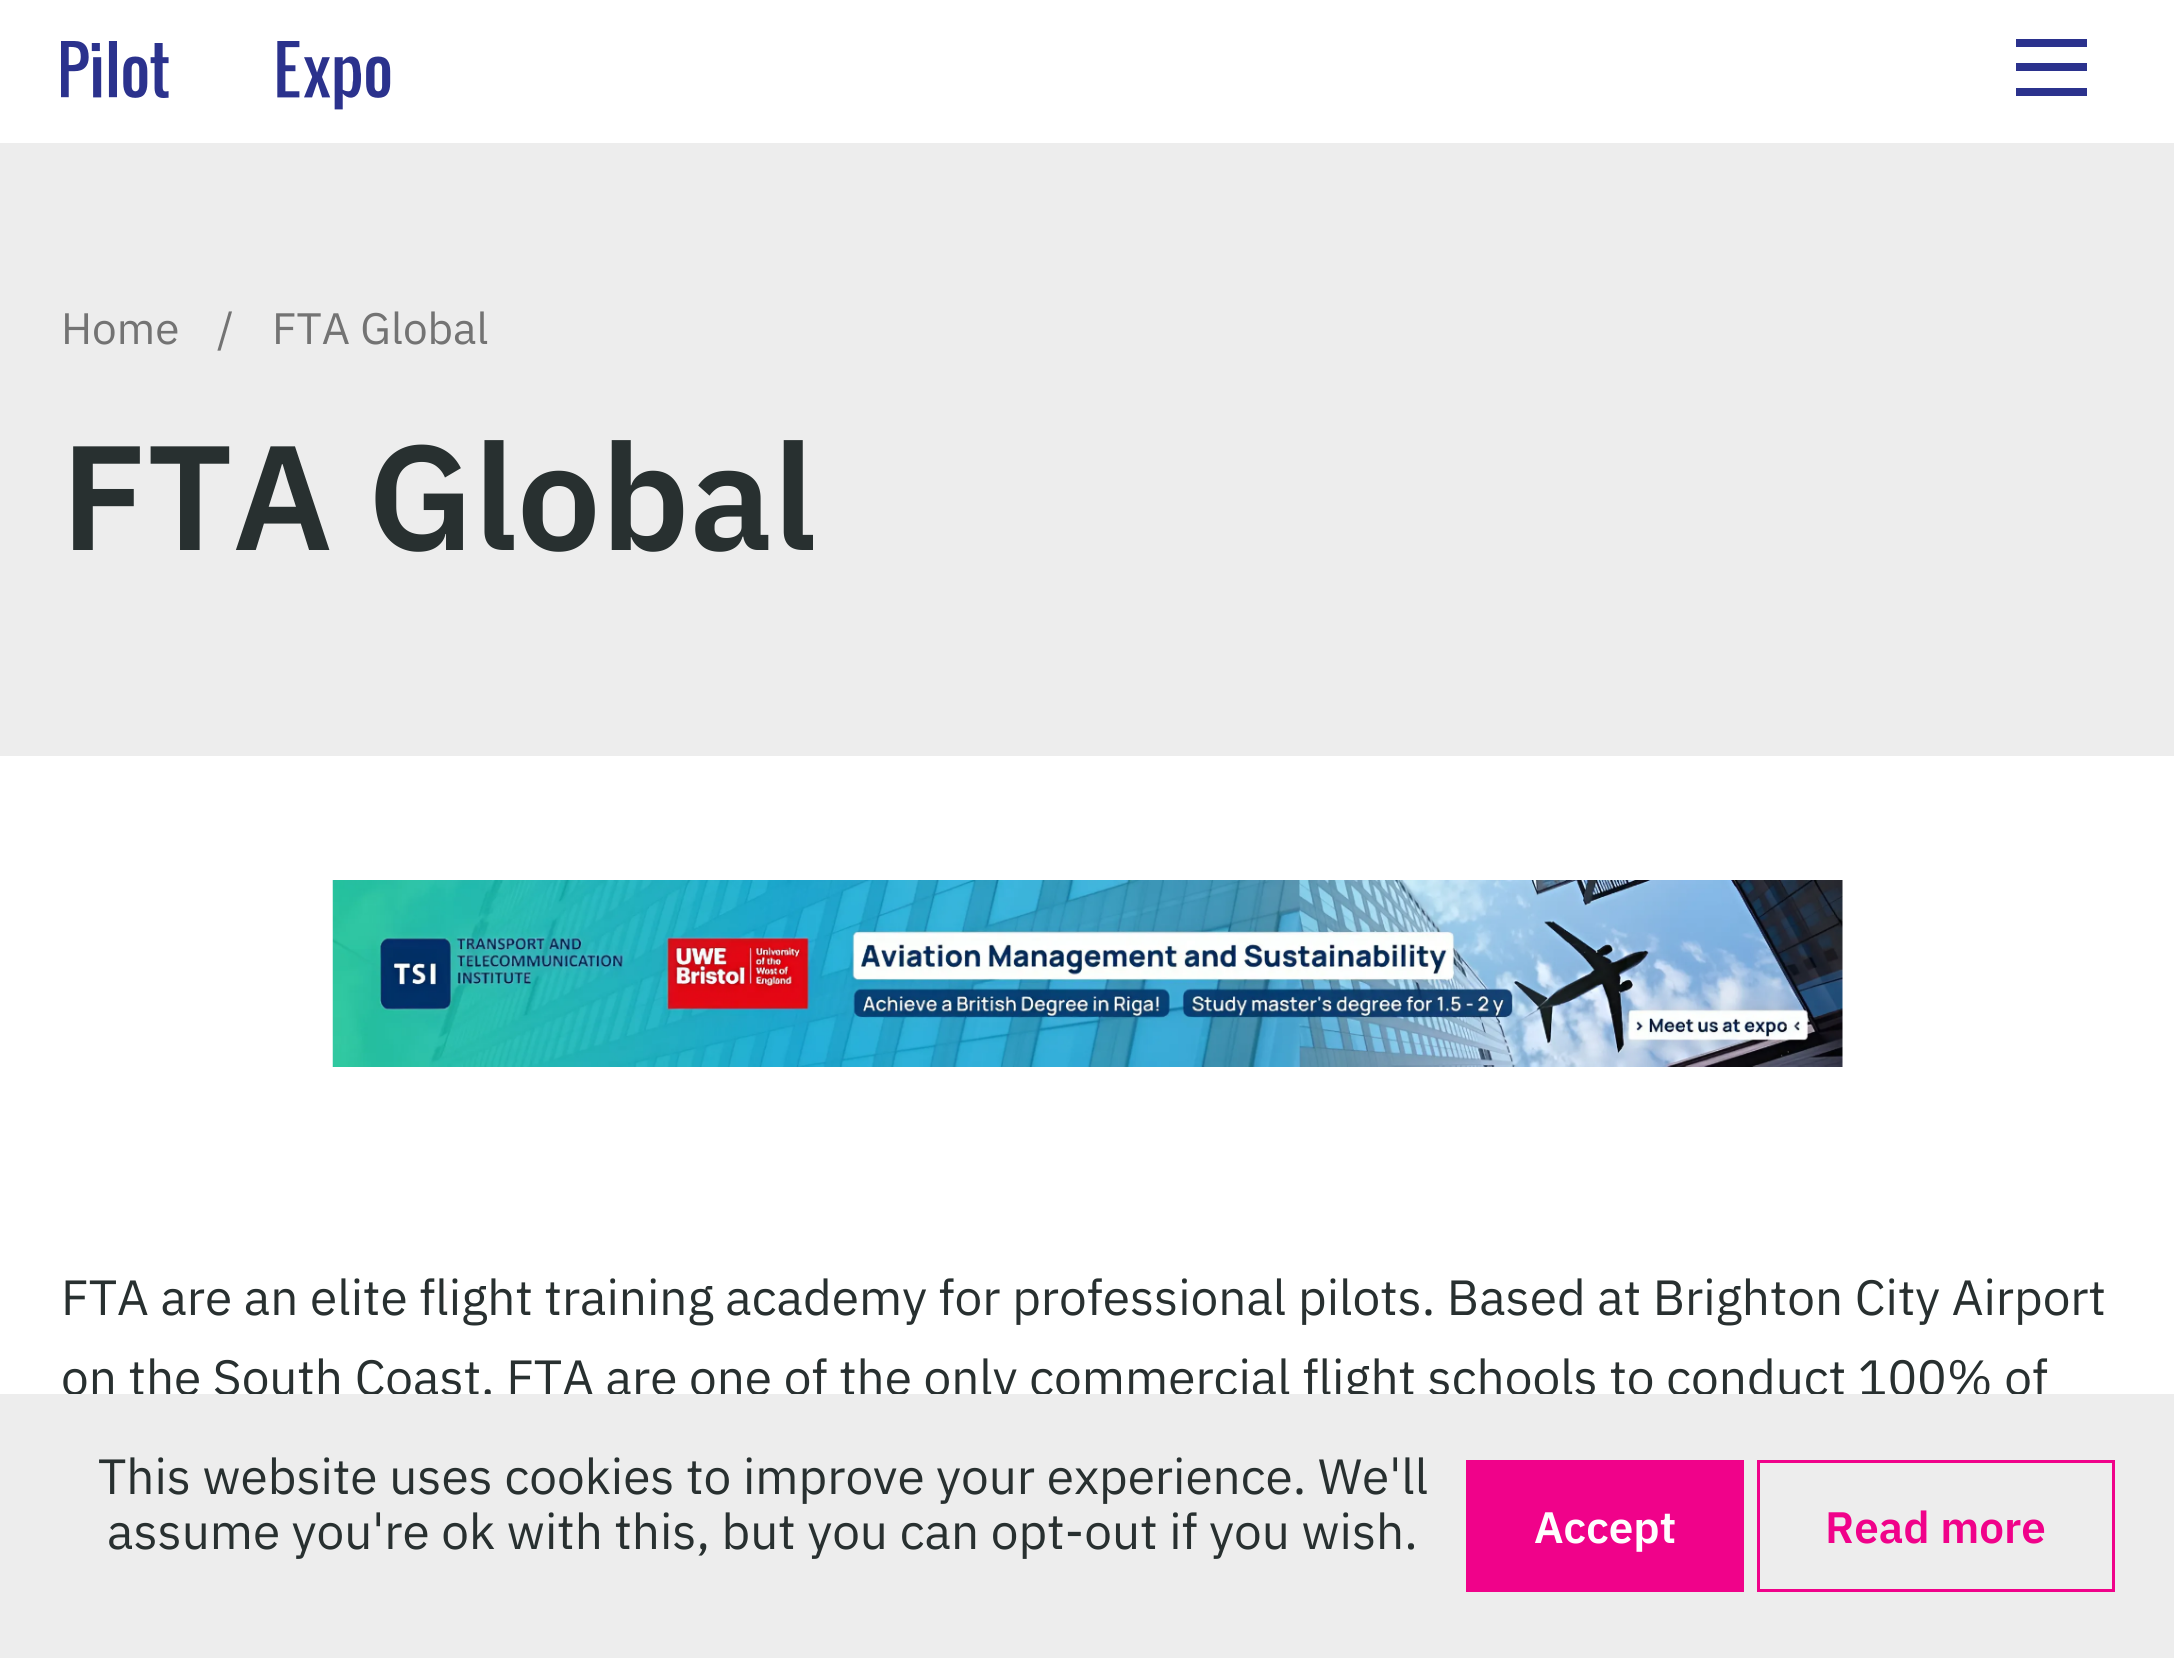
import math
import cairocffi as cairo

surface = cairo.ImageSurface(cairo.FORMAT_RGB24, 2174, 1658)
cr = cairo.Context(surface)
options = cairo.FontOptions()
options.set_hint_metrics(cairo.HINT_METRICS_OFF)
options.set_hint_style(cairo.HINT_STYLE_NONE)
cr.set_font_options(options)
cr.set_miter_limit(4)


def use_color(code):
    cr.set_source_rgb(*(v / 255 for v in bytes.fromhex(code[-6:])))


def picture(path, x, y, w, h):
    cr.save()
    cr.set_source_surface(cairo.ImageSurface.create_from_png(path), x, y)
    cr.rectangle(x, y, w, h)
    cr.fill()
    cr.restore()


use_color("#ffffff")
cr.paint()
picture("img1.png", 61, 41, 330, 69)
use_color("#2b328d")
cr.rectangle(2016, 63, 71, 8)
cr.fill()
cr.rectangle(2016, 39, 71, 8)
cr.fill()
cr.rectangle(2016, 88, 71, 8)
cr.fill()
use_color("#ededed")
cr.rectangle(0, 143, 2174, 613)
cr.fill()
cr.select_font_face("IBM Plex Sans")
cr.set_font_size(44)
use_color("#737373")
cr.move_to(61, 344)
cr.show_text("Home")
cr.move_to(217, 344)
cr.show_text("/")
cr.move_to(272, 344)
cr.show_text("FTA Global")
cr.select_font_face("IBM Plex Sans SemiBold")
cr.set_font_size(148.5)
use_color("#283030")
cr.move_to(61, 550)
cr.show_text("FTA Global")
picture("img2.png", 332, 880, 1511, 187)
cr.select_font_face("IBM Plex Sans")
cr.set_font_size(49.5)
cr.move_to(61, 1315)
cr.show_text("FTA are an elite flight training academy for professional pilots. Based at Brighton City Airport")
cr.move_to(61, 1395)
cr.show_text("on the South Coast, FTA are one of the only commercial flight schools to conduct 100% of")
use_color("#ededed")
cr.rectangle(0, 1394, 2174, 264)
cr.fill()
use_color("#283030")
cr.move_to(98, 1494)
cr.show_text("This website uses cookies to improve your experience. We'll")
cr.move_to(107, 1549)
cr.show_text("assume you're ok with this, but you can opt-out if you wish.")
use_color("#f0028a")
cr.rectangle(1466, 1460, 278, 132)
cr.fill()
cr.select_font_face("IBM Plex Sans SemiBold")
cr.set_font_size(44)
use_color("#fefefe")
cr.move_to(1534, 1543)
cr.show_text("Accept")
cr.rectangle(1758.5, 1461.5, 355, 129)
use_color("#f0028a")
cr.set_line_width(3)
cr.stroke()
cr.move_to(1825, 1543)
cr.show_text("Read more")
surface.write_to_png("result.png")
